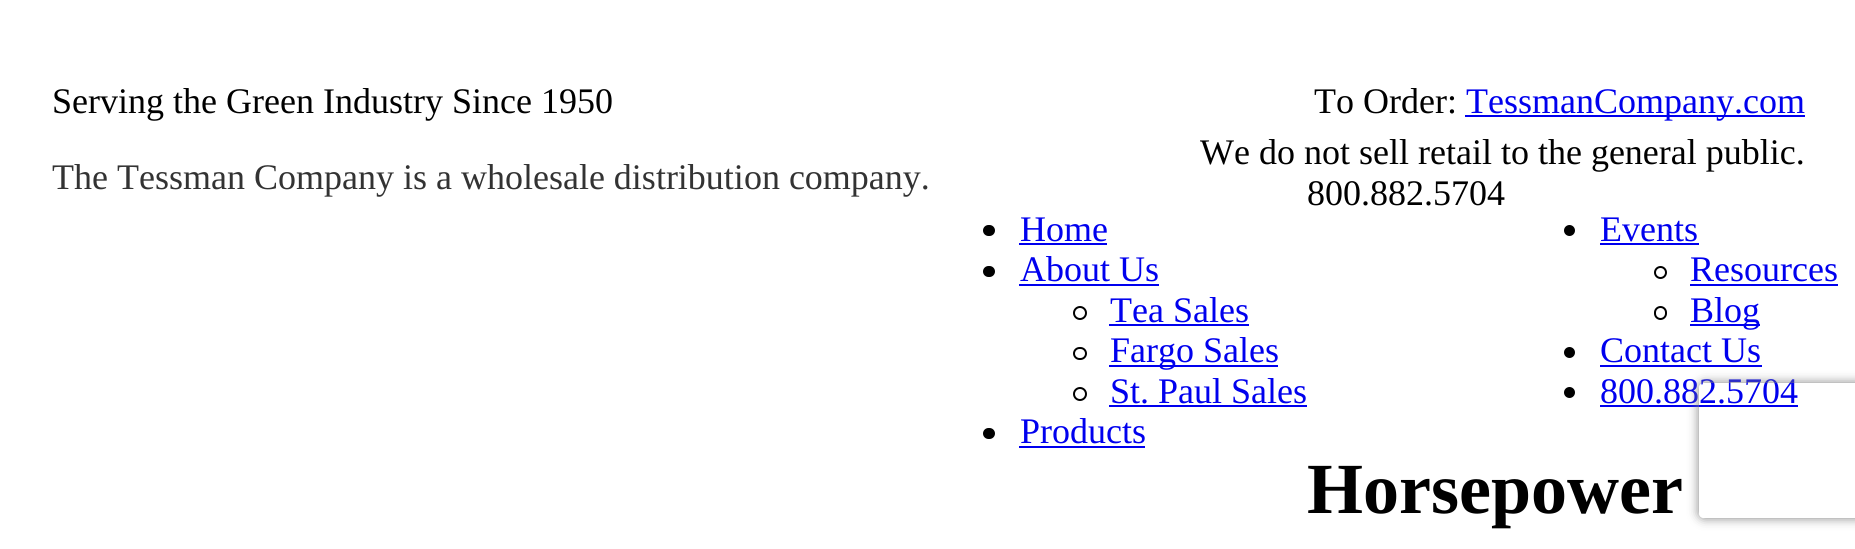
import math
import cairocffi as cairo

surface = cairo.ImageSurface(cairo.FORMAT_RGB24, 1855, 549)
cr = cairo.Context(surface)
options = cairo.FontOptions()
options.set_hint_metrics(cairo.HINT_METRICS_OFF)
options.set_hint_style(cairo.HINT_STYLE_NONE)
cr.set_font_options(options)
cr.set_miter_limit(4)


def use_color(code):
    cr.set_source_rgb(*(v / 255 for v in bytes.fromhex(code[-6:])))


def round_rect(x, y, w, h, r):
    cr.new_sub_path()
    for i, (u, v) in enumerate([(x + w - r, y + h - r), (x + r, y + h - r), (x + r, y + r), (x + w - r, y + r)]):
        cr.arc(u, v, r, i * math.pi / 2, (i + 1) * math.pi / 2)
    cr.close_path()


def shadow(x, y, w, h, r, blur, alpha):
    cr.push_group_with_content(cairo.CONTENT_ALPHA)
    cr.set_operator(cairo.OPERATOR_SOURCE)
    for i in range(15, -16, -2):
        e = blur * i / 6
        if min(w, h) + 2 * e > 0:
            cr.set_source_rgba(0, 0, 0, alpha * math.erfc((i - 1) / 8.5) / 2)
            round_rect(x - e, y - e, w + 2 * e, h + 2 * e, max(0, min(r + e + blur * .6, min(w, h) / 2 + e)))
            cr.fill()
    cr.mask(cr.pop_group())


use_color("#ffffff")
cr.paint()
cr.select_font_face("Liberation Serif")
cr.set_font_size(36)
use_color("#000000")
cr.move_to(52, 113)
cr.show_text("Serving the Green Industry Since 1950")
use_color("#333333")
cr.move_to(52, 189)
cr.show_text("The Tessman Company is a wholesale distribution company.")
use_color("#000000")
cr.move_to(1314, 113)
cr.show_text("To Order:")
use_color("#0000ee")
cr.rectangle(1465, 115, 340, 2)
cr.fill()
cr.move_to(1466, 113)
cr.show_text("TessmanCompany.com")
use_color("#000000")
cr.move_to(1200, 164)
cr.show_text("We do not sell retail to the general public.")
cr.move_to(1307, 205)
cr.show_text("800.882.5704")
round_rect(983, 225, 12, 11, 5.5)
cr.fill()
use_color("#0000ee")
cr.move_to(1020, 241)
cr.show_text("Home")
cr.rectangle(1019, 243, 88, 2)
cr.fill()
use_color("#000000")
round_rect(983, 266, 12, 11, 5.5)
cr.fill()
use_color("#0000ee")
cr.move_to(1020, 281)
cr.show_text("About Us")
cr.rectangle(1019, 284, 140, 2)
cr.fill()
cr.arc(1080, 313, 6, 0, 2 * math.pi)
use_color("#000000")
cr.stroke()
use_color("#0000ee")
cr.move_to(1110, 322)
cr.show_text("Tea Sales")
cr.rectangle(1109, 324, 140, 2)
cr.fill()
round_rect(1074, 348, 12, 11, 5.5)
use_color("#000000")
cr.stroke()
use_color("#0000ee")
cr.rectangle(1109, 365, 169, 2)
cr.fill()
cr.move_to(1110, 362)
cr.show_text("Fargo Sales")
cr.new_path()
cr.arc(1080, 394, 6, 0, 2 * math.pi)
use_color("#000000")
cr.stroke()
use_color("#0000ee")
cr.move_to(1110, 403)
cr.show_text("St. Paul Sales")
cr.rectangle(1109, 405, 198, 2)
cr.fill()
use_color("#000000")
round_rect(983, 428, 12, 11, 5.5)
cr.fill()
use_color("#0000ee")
cr.move_to(1020, 443)
cr.show_text("Products")
cr.rectangle(1019, 446, 126, 2)
cr.fill()
use_color("#000000")
cr.arc(1569.5, 230.5, 5.5, 0, 2 * math.pi)
cr.fill()
use_color("#0000ee")
cr.move_to(1600, 241)
cr.show_text("Events")
cr.rectangle(1600, 243, 99, 2)
cr.fill()
cr.arc(1660.5, 272.5, 5.5, 0, 2 * math.pi)
use_color("#000000")
cr.stroke()
use_color("#0000ee")
cr.move_to(1690, 281)
cr.show_text("Resources")
cr.rectangle(1690, 284, 148, 2)
cr.fill()
round_rect(1655, 307, 11, 12, 5.5)
use_color("#000000")
cr.stroke()
use_color("#0000ee")
cr.rectangle(1690, 324, 70, 2)
cr.fill()
cr.move_to(1690, 322)
cr.show_text("Blog")
use_color("#000000")
cr.new_path()
cr.arc(1569.5, 352.5, 5.5, 0, 2 * math.pi)
cr.fill()
use_color("#0000ee")
cr.move_to(1600, 362)
cr.show_text("Contact Us")
cr.rectangle(1600, 365, 162, 2)
cr.fill()
use_color("#000000")
cr.arc(1569.5, 392.5, 5.5, 0, 2 * math.pi)
cr.fill()
use_color("#0000ee")
cr.move_to(1600, 403)
cr.show_text("800.882.5704")
cr.rectangle(1600, 405, 198, 2)
cr.fill()
cr.select_font_face("Liberation Serif", cairo.FONT_SLANT_NORMAL, cairo.FONT_WEIGHT_BOLD)
cr.set_font_size(72)
use_color("#000000")
cr.move_to(1307, 513)
cr.show_text("Horsepower")
cr.save()
cr.set_fill_rule(cairo.FILL_RULE_EVEN_ODD)
cr.new_path()
cr.move_to(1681, 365)
cr.line_to(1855, 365)
cr.line_to(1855, 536)
cr.line_to(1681, 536)
cr.close_path()
cr.move_to(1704, 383)
cr.line_to(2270, 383)
cr.curve_to(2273, 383, 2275, 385, 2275, 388)
cr.line_to(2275, 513)
cr.curve_to(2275, 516, 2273, 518, 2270, 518)
cr.line_to(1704, 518)
cr.curve_to(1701, 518, 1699, 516, 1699, 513)
cr.line_to(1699, 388)
cr.curve_to(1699, 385, 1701, 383, 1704, 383)
cr.close_path()
cr.clip()
use_color("#808080")
shadow(1699, 383, 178, 135, 5, 5.5, 1)
cr.restore()
surface.write_to_png("result.png")
